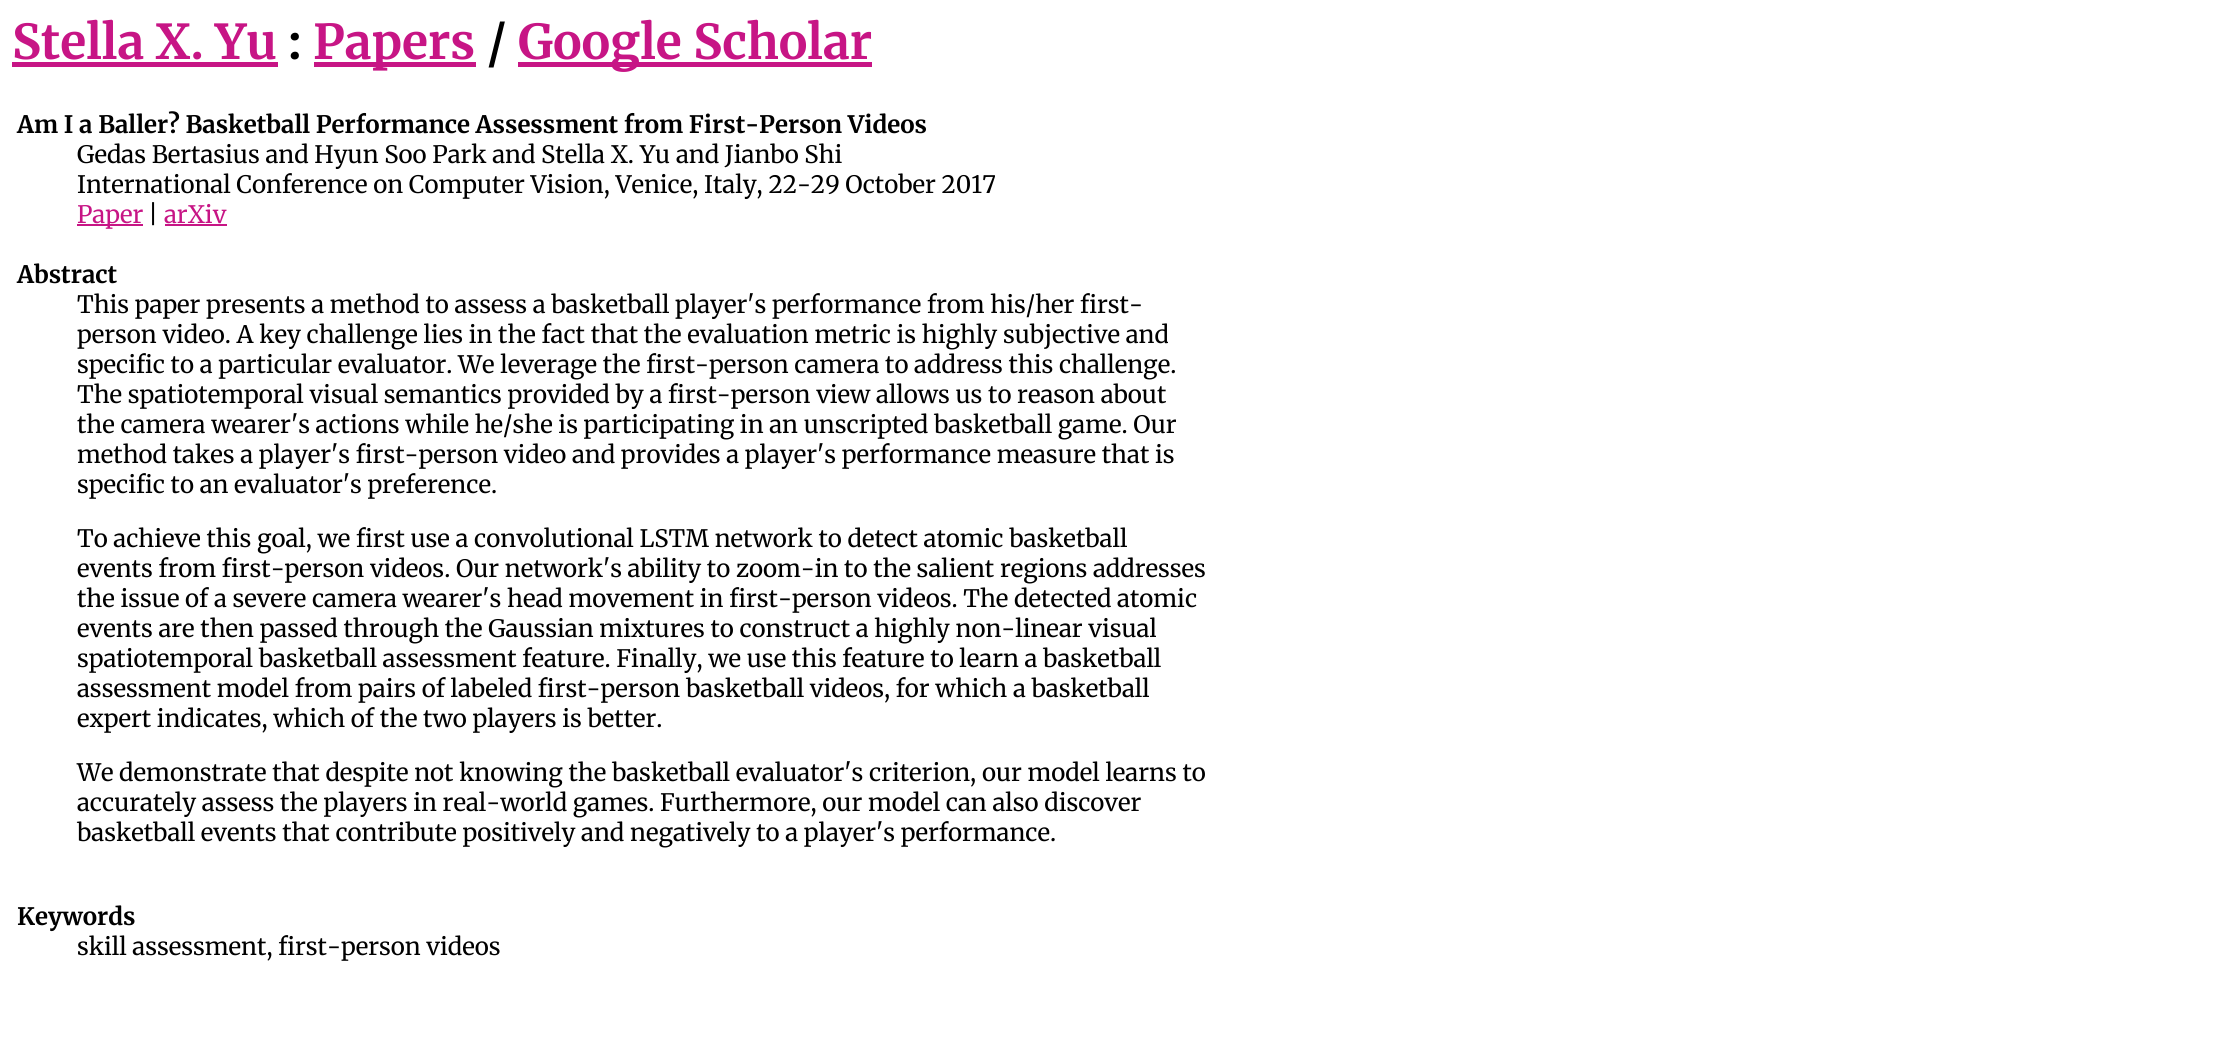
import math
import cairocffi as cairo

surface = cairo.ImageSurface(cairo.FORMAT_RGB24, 2220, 1041)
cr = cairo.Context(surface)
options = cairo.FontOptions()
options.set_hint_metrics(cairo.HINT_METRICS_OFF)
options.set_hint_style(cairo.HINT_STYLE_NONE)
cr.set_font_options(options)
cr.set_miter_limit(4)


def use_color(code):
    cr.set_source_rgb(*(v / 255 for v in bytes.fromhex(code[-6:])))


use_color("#ffffff")
cr.paint()
cr.select_font_face("Merriweather", cairo.FONT_SLANT_NORMAL, cairo.FONT_WEIGHT_BOLD)
cr.set_font_size(48)
use_color("#c71585")
cr.move_to(12, 59)
cr.show_text("Stella X. Yu")
cr.rectangle(12, 62, 266, 5)
cr.fill()
use_color("#000000")
cr.move_to(288, 59)
cr.show_text(":")
use_color("#c71585")
cr.rectangle(314, 62, 162, 5)
cr.fill()
cr.move_to(313, 59)
cr.show_text("Papers")
use_color("#000000")
cr.move_to(487, 59)
cr.show_text("/")
use_color("#c71585")
cr.rectangle(518, 62, 354, 5)
cr.fill()
cr.move_to(518, 59)
cr.show_text("Google Scholar")
cr.set_font_size(24)
use_color("#000000")
cr.move_to(17, 133)
cr.show_text("Am I a Baller? Basketball Performance Assessment from First-Person Videos")
cr.select_font_face("Merriweather")
cr.move_to(77, 163)
cr.show_text("Gedas Bertasius and Hyun Soo Park and Stella X. Yu and Jianbo Shi")
cr.move_to(77, 193)
cr.show_text("International Conference on Computer Vision, Venice, Italy, 22-29 October 2017")
use_color("#c71585")
cr.rectangle(77, 224, 66, 2)
cr.fill()
cr.move_to(77, 223)
cr.show_text("Paper")
use_color("#000000")
cr.move_to(148, 223)
cr.show_text("|")
use_color("#c71585")
cr.move_to(164, 223)
cr.show_text("arXiv")
cr.rectangle(165, 224, 62, 2)
cr.fill()
cr.select_font_face("Merriweather", cairo.FONT_SLANT_NORMAL, cairo.FONT_WEIGHT_BOLD)
use_color("#000000")
cr.move_to(17, 283)
cr.show_text("Abstract")
cr.select_font_face("Merriweather")
cr.move_to(77, 313)
cr.show_text("This paper presents a method to assess a basketball player's performance from his/her first-")
cr.move_to(77, 343)
cr.show_text("person video. A key challenge lies in the fact that the evaluation metric is highly subjective and")
cr.move_to(77, 373)
cr.show_text("specific to a particular evaluator. We leverage the first-person camera to address this challenge.")
cr.move_to(77, 403)
cr.show_text("The spatiotemporal visual semantics provided by a first-person view allows us to reason about")
cr.move_to(77, 433)
cr.show_text("the camera wearer's actions while he/she is participating in an unscripted basketball game. Our")
cr.move_to(77, 463)
cr.show_text("method takes a player's first-person video and provides a player's performance measure that is")
cr.move_to(77, 493)
cr.show_text("specific to an evaluator's preference.")
cr.move_to(77, 547)
cr.show_text("To achieve this goal, we first use a convolutional LSTM network to detect atomic basketball")
cr.move_to(77, 577)
cr.show_text("events from first-person videos. Our network's ability to zoom-in to the salient regions addresses")
cr.move_to(77, 607)
cr.show_text("the issue of a severe camera wearer's head movement in first-person videos. The detected atomic")
cr.move_to(77, 637)
cr.show_text("events are then passed through the Gaussian mixtures to construct a highly non-linear visual")
cr.move_to(77, 667)
cr.show_text("spatiotemporal basketball assessment feature. Finally, we use this feature to learn a basketball")
cr.move_to(77, 697)
cr.show_text("assessment model from pairs of labeled first-person basketball videos, for which a basketball")
cr.move_to(77, 727)
cr.show_text("expert indicates, which of the two players is better.")
cr.move_to(77, 781)
cr.show_text("We demonstrate that despite not knowing the basketball evaluator's criterion, our model learns to")
cr.move_to(77, 811)
cr.show_text("accurately assess the players in real-world games. Furthermore, our model can also discover")
cr.move_to(77, 841)
cr.show_text("basketball events that contribute positively and negatively to a player's performance.")
cr.select_font_face("Merriweather", cairo.FONT_SLANT_NORMAL, cairo.FONT_WEIGHT_BOLD)
cr.move_to(17, 925)
cr.show_text("Keywords")
cr.select_font_face("Merriweather")
cr.move_to(77, 955)
cr.show_text("skill assessment, first-person videos")
surface.write_to_png("result.png")
